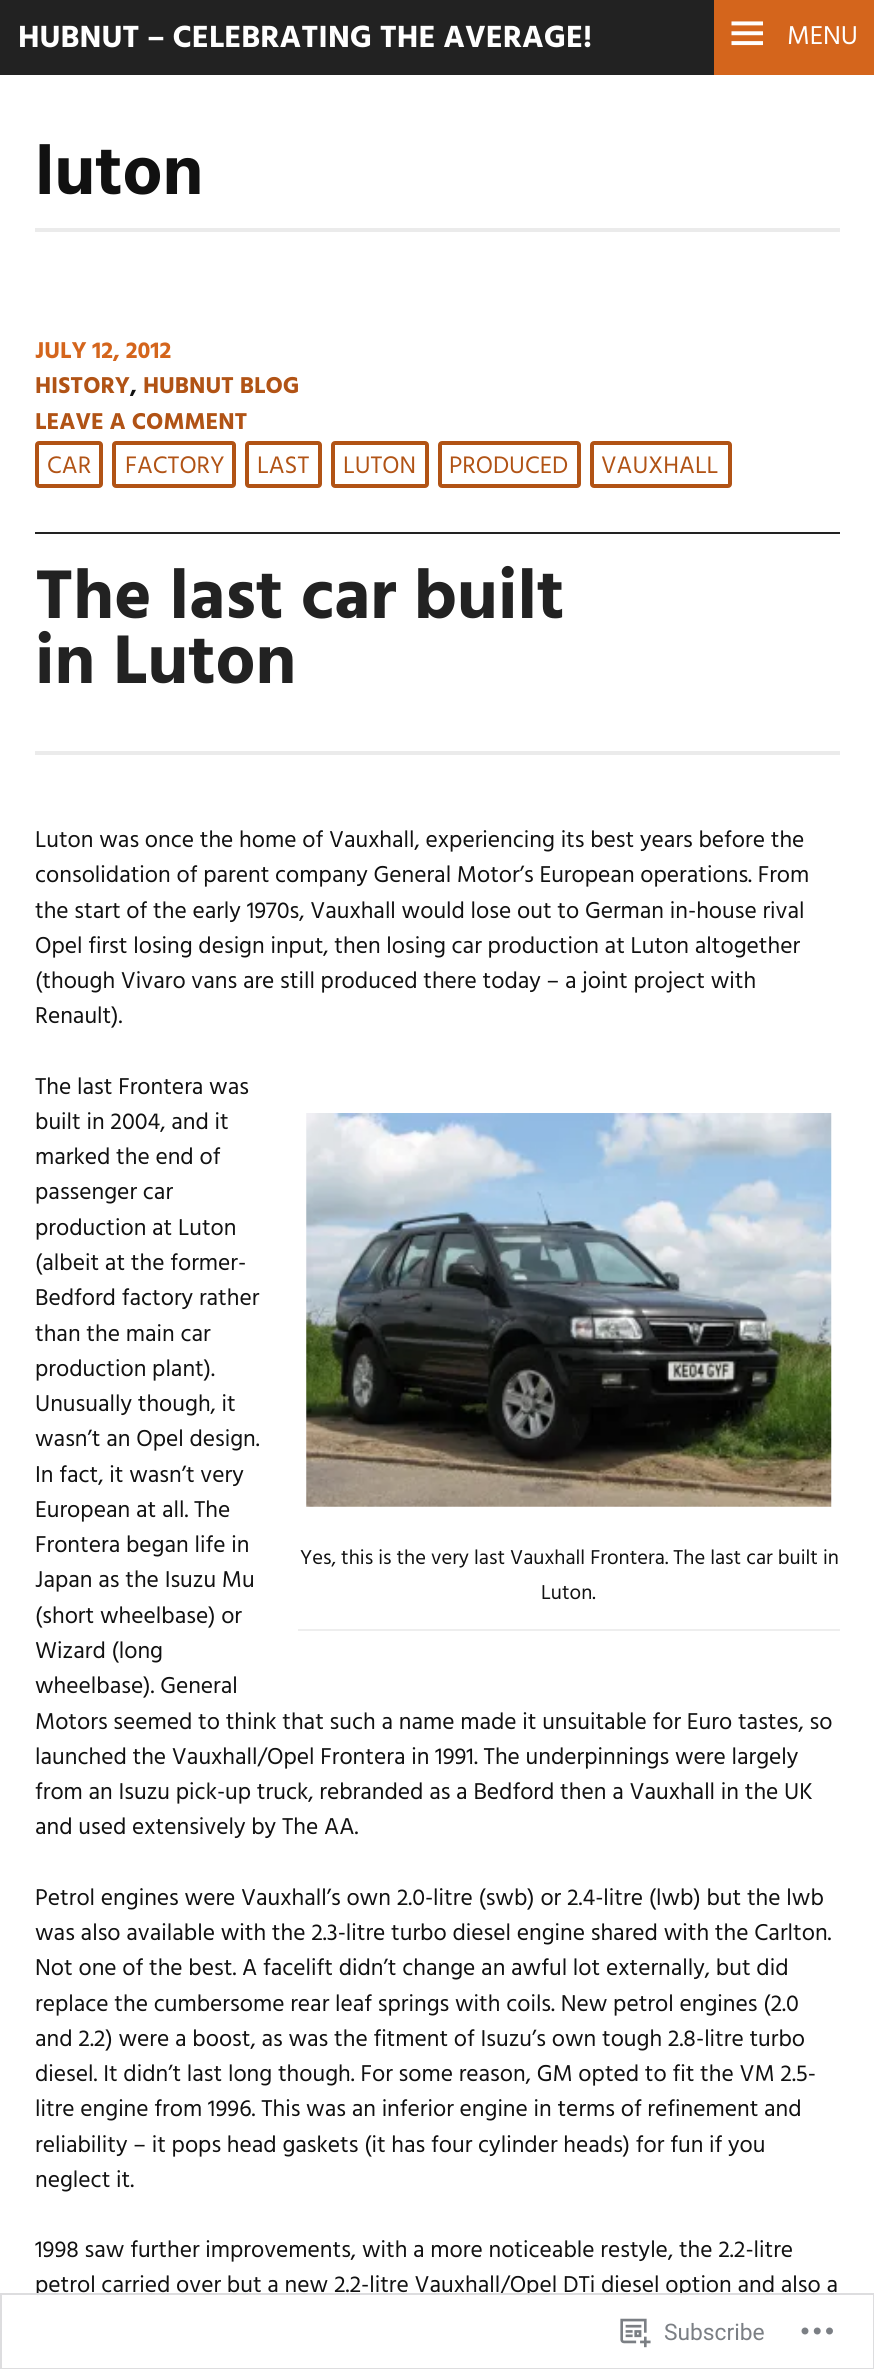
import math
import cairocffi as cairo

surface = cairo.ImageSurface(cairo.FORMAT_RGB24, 874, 2369)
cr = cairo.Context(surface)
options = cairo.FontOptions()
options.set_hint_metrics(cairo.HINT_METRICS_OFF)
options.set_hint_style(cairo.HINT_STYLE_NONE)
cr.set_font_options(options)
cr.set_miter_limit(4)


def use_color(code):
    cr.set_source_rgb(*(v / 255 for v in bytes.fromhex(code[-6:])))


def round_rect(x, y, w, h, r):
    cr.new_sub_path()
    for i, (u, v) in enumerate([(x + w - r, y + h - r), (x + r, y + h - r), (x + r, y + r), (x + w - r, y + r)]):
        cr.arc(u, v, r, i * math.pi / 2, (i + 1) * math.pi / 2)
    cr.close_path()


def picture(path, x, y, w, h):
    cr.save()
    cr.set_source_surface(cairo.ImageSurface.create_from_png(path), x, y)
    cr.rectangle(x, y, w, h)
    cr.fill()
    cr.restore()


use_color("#ffffff")
cr.paint()
use_color("#222222")
cr.rectangle(0, 0, 714, 75)
cr.fill()
cr.select_font_face("Hind", cairo.FONT_SLANT_NORMAL, cairo.FONT_WEIGHT_BOLD)
cr.set_font_size(31.4)
use_color("#ffffff")
cr.move_to(18, 47)
cr.show_text("HUBNUT – CELEBRATING THE AVERAGE!")
use_color("#d4651c")
cr.rectangle(714, 0, 160, 75)
cr.fill()
picture("img1.png", 731, 21, 32, 25)
cr.select_font_face("Hind")
cr.set_font_size(26.5)
use_color("#ffffff")
cr.move_to(787, 44)
cr.show_text("MENU")
use_color("#ebebeb")
cr.rectangle(35, 228, 805, 4)
cr.fill()
cr.select_font_face("Hind", cairo.FONT_SLANT_NORMAL, cairo.FONT_WEIGHT_BOLD)
cr.set_font_size(70.5)
use_color("#111111")
cr.move_to(35, 194)
cr.show_text("luton")
use_color("#222222")
cr.rectangle(35, 532, 805, 2)
cr.fill()
cr.set_font_size(23.5)
use_color("#d4651c")
cr.move_to(35, 358)
cr.show_text("JULY 12, 2012")
use_color("#b15315")
cr.move_to(35, 393)
cr.show_text("HISTORY")
use_color("#111111")
cr.move_to(130, 393)
cr.show_text(",")
use_color("#b15315")
cr.move_to(143, 393)
cr.show_text("HUBNUT BLOG")
cr.move_to(35, 429)
cr.show_text("LEAVE A COMMENT")
round_rect(37, 443, 64, 43, 2)
cr.set_line_width(4)
cr.stroke()
cr.select_font_face("Hind")
cr.set_font_size(24.5)
cr.move_to(47, 473)
cr.show_text("CAR")
round_rect(114, 443, 120, 43, 2)
cr.stroke()
cr.move_to(125, 473)
cr.show_text("FACTORY")
round_rect(247, 443, 73, 43, 2)
cr.stroke()
cr.move_to(257, 473)
cr.show_text("LAST")
round_rect(333, 443, 94, 43, 2)
cr.stroke()
cr.move_to(343, 473)
cr.show_text("LUTON")
round_rect(440, 443, 139, 43, 2)
cr.stroke()
cr.move_to(449, 473)
cr.show_text("PRODUCED")
round_rect(592, 443, 138, 43, 2)
cr.stroke()
cr.move_to(601, 473)
cr.show_text("VAUXHALL")
use_color("#ebebeb")
cr.rectangle(35, 751, 805, 4)
cr.fill()
cr.select_font_face("Hind", cairo.FONT_SLANT_NORMAL, cairo.FONT_WEIGHT_BOLD)
cr.set_font_size(70.5)
use_color("#222222")
cr.move_to(35, 618)
cr.show_text("The last car built")
cr.move_to(35, 683)
cr.show_text("in Luton")
cr.select_font_face("Hind")
cr.set_font_size(23.5)
use_color("#111111")
cr.move_to(35, 847)
cr.show_text("Luton was once the home of Vauxhall, experiencing its best years before the")
cr.move_to(35, 882)
cr.show_text("consolidation of parent company General Motor’s European operations. From")
cr.move_to(35, 918)
cr.show_text("the start of the early 1970s, Vauxhall would lose out to German in-house rival")
cr.move_to(35, 953)
cr.show_text("Opel first losing design input, then losing car production at Luton altogether")
cr.move_to(35, 988)
cr.show_text("(though Vivaro vans are still produced there today – a joint project with")
cr.move_to(35, 1023)
cr.show_text("Renault).")
cr.move_to(35, 1094)
cr.show_text("The last Frontera was")
cr.move_to(35, 1129)
cr.show_text("built in 2004, and it")
cr.move_to(35, 1164)
cr.show_text("marked the end of")
cr.move_to(35, 1199)
cr.show_text("passenger car")
cr.move_to(35, 1235)
cr.show_text("production at Luton")
cr.move_to(35, 1270)
cr.show_text("(albeit at the former-")
cr.move_to(35, 1305)
cr.show_text("Bedford factory rather")
cr.move_to(35, 1341)
cr.show_text("than the main car")
cr.move_to(35, 1376)
cr.show_text("production plant).")
cr.move_to(35, 1411)
cr.show_text("Unusually though, it")
cr.move_to(35, 1446)
cr.show_text("wasn’t an Opel design.")
cr.move_to(35, 1482)
cr.show_text("In fact, it wasn’t very")
cr.move_to(35, 1517)
cr.show_text("European at all. The")
cr.move_to(35, 1552)
cr.show_text("Frontera began life in")
cr.move_to(35, 1587)
cr.show_text("Japan as the Isuzu Mu")
cr.move_to(35, 1623)
cr.show_text("(short wheelbase) or")
cr.move_to(35, 1658)
cr.show_text("Wizard (long")
cr.move_to(35, 1693)
cr.show_text("wheelbase). General")
cr.move_to(35, 1729)
cr.show_text("Motors seemed to think that such a name made it unsuitable for Euro tastes, so")
cr.move_to(35, 1764)
cr.show_text("launched the Vauxhall/Opel Frontera in 1991. The underpinnings were largely")
cr.move_to(35, 1799)
cr.show_text("from an Isuzu pick-up truck, rebranded as a Bedford then a Vauxhall in the UK")
cr.move_to(35, 1834)
cr.show_text("and used extensively by The AA.")
picture("img2.png", 306, 1113, 526, 394)
use_color("#eeeeee")
cr.rectangle(298, 1629, 542, 2)
cr.fill()
cr.set_font_size(20.6)
use_color("#111111")
cr.move_to(300, 1564)
cr.show_text("Yes, this is the very last Vauxhall Frontera. The last car built in")
cr.move_to(541, 1599)
cr.show_text("Luton.")
cr.set_font_size(23.5)
cr.move_to(35, 1905)
cr.show_text("Petrol engines were Vauxhall’s own 2.0-litre (swb) or 2.4-litre (lwb) but the lwb")
cr.move_to(35, 1940)
cr.show_text("was also available with the 2.3-litre turbo diesel engine shared with the Carlton.")
cr.move_to(35, 1975)
cr.show_text("Not one of the best. A facelift didn’t change an awful lot externally, but did")
cr.move_to(35, 2011)
cr.show_text("replace the cumbersome rear leaf springs with coils. New petrol engines (2.0")
cr.move_to(35, 2046)
cr.show_text("and 2.2) were a boost, as was the fitment of Isuzu’s own tough 2.8-litre turbo")
cr.move_to(35, 2081)
cr.show_text("diesel. It didn’t last long though. For some reason, GM opted to fit the VM 2.5-")
cr.move_to(35, 2116)
cr.show_text("litre engine from 1996. This was an inferior engine in terms of refinement and")
cr.move_to(35, 2152)
cr.show_text("reliability – it pops head gaskets (it has four cylinder heads) for fun if you")
cr.move_to(35, 2187)
cr.show_text("neglect it.")
cr.move_to(35, 2257)
cr.show_text("1998 saw further improvements, with a more noticeable restyle, the 2.2-litre")
cr.move_to(35, 2292)
cr.show_text("petrol carried over but a new 2.2-litre Vauxhall/Opel DTi diesel option and also a")
cr.set_source_rgba(1, 1, 1, 0.98)
cr.rectangle(36, 2293, 647, 4)
cr.fill()
cr.rectangle(1, 2294, 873, 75)
cr.set_source_rgba(0.863, 0.863, 0.871, 0.98)
cr.set_line_width(2)
cr.stroke()
picture("img3.png", 620, 2318, 31, 30)
cr.select_font_face("Roboto")
cr.set_font_size(22.75)
use_color("#7b7f84")
cr.move_to(664, 2340)
cr.show_text("Subscribe")
picture("img4.png", 801, 2327, 32, 8)
surface.write_to_png("result.png")
